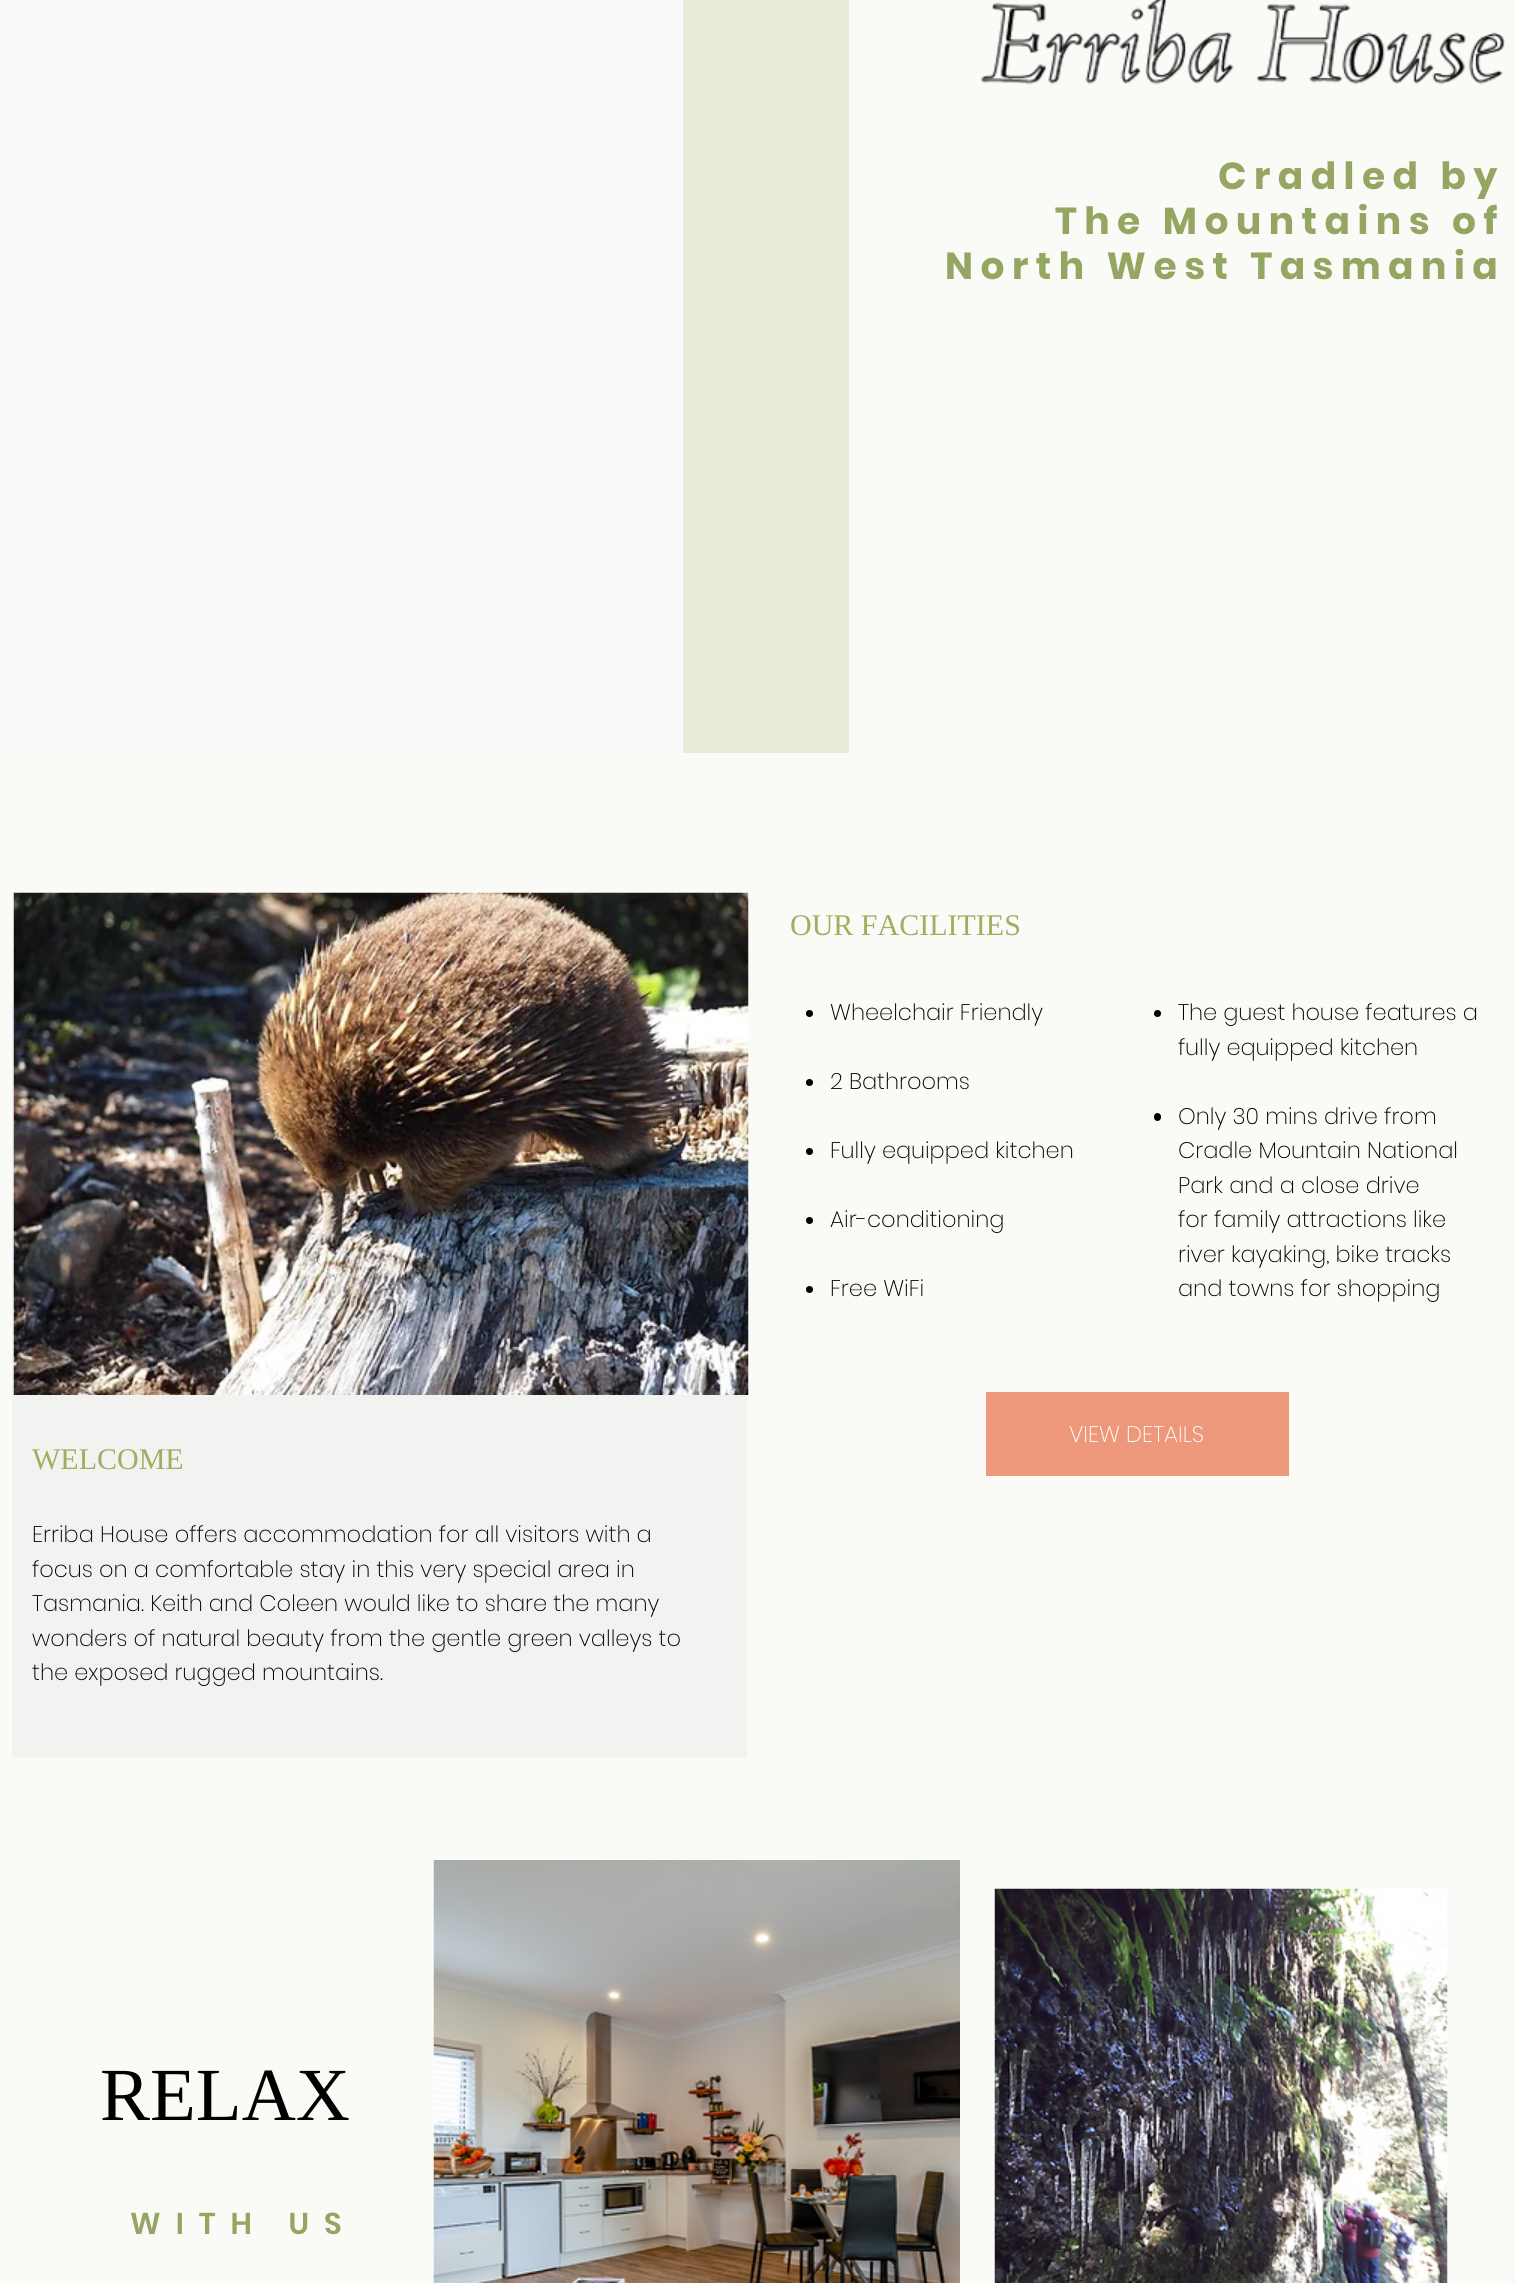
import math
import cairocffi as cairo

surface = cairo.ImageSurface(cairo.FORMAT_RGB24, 1515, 2283)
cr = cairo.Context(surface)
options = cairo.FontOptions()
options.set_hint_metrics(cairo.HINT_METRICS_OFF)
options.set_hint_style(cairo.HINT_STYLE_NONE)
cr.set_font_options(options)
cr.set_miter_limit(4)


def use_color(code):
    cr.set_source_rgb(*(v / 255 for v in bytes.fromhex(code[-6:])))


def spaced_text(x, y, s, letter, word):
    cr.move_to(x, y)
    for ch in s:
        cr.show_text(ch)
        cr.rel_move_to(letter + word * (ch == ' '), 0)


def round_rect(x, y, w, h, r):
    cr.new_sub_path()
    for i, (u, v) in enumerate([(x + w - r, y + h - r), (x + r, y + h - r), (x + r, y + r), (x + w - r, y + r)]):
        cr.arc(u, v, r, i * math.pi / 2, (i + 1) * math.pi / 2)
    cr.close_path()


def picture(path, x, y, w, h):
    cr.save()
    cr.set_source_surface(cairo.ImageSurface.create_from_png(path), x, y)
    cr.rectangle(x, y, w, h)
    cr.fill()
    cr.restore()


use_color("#fafaf7")
cr.paint()
use_color("#fafafa")
cr.rectangle(0, 0, 683, 753)
cr.fill()
use_color("#e7ebd9")
cr.rectangle(683, 0, 166, 753)
cr.fill()
picture("img1.png", 980, 0, 525, 85)
cr.select_font_face("Poppins", cairo.FONT_SLANT_NORMAL, cairo.FONT_WEIGHT_BOLD)
cr.set_font_size(37.5)
use_color("#95a663")
spaced_text(1218, 189, "Cradled by", 7.5, 0)
spaced_text(1055, 234, "The Mountains of", 7.5, 0)
spaced_text(945, 279, "North West Tasmania", 7.5, 0)
cr.select_font_face("Liberation Serif")
cr.set_font_size(30)
use_color("#9cb05f")
cr.move_to(790, 935)
cr.show_text("OUR FACILITIES")
use_color("#000000")
cr.new_path()
cr.arc(809.5, 1013.5, 3.5, 0, 2 * math.pi)
cr.fill()
cr.select_font_face("Poppins ExtraLight")
cr.set_font_size(22.5)
cr.move_to(830, 1020)
cr.show_text("Wheelchair Friendly")
cr.new_path()
cr.arc(809.5, 1082.5, 3.5, 0, 2 * math.pi)
cr.fill()
cr.move_to(830, 1089)
cr.show_text("2 Bathrooms")
cr.new_path()
cr.arc(809.5, 1151.5, 3.5, 0, 2 * math.pi)
cr.fill()
cr.move_to(830, 1158)
cr.show_text("Fully equipped kitchen")
cr.new_path()
cr.arc(809.5, 1220.5, 3.5, 0, 2 * math.pi)
cr.fill()
cr.move_to(830, 1227)
cr.show_text("Air-conditioning")
cr.new_path()
cr.arc(809.5, 1289.5, 3.5, 0, 2 * math.pi)
cr.fill()
cr.move_to(830, 1296)
cr.show_text("Free WiFi")
cr.new_path()
cr.arc(1157.5, 1013.5, 3.5, 0, 2 * math.pi)
cr.fill()
cr.move_to(1178, 1020)
cr.show_text("The guest house features a")
cr.move_to(1178, 1055)
cr.show_text("fully equipped kitchen")
round_rect(1154, 1113, 7, 8, 3.5)
cr.fill()
cr.move_to(1178, 1124)
cr.show_text("Only 30 mins drive from")
cr.move_to(1178, 1158)
cr.show_text("Cradle Mountain National")
cr.move_to(1178, 1193)
cr.show_text("Park and a close drive")
cr.move_to(1178, 1227)
cr.show_text("for family attractions like")
cr.move_to(1178, 1262)
cr.show_text("river kayaking, bike tracks")
cr.move_to(1178, 1296)
cr.show_text("and towns for shopping")
use_color("#ed977b")
cr.rectangle(986, 1392, 303, 84)
cr.fill()
use_color("#ffffff")
cr.move_to(1069, 1442)
cr.show_text("VIEW DETAILS")
use_color("#f2f2f1")
cr.rectangle(12, 1005, 735, 753)
cr.fill()
picture("img2.png", 13, 892, 736, 503)
cr.select_font_face("Liberation Serif")
cr.set_font_size(30)
use_color("#9cb05f")
cr.move_to(32, 1469)
cr.show_text("WELCOME")
cr.select_font_face("Poppins ExtraLight")
cr.set_font_size(22.5)
use_color("#000000")
cr.move_to(32, 1542)
cr.show_text("Erriba House offers accommodation for all visitors with a")
cr.move_to(32, 1577)
cr.show_text("focus on a comfortable stay in this very special area in")
cr.move_to(32, 1611)
cr.show_text("Tasmania. Keith and Coleen would like to share the many")
cr.move_to(32, 1646)
cr.show_text("wonders of natural beauty from the gentle green valleys to")
cr.move_to(32, 1680)
cr.show_text("the exposed rugged mountains.")
cr.select_font_face("Liberation Serif")
cr.set_font_size(75)
cr.move_to(100, 2120)
cr.show_text("RELAX")
picture("img3.png", 433, 1860, 527, 423)
picture("img4.png", 994, 1888, 454, 395)
cr.select_font_face("Poppins SemiBold")
cr.set_font_size(30)
use_color("#95a663")
spaced_text(130, 2234, "WITH US", 15, 0)
surface.write_to_png("result.png")
